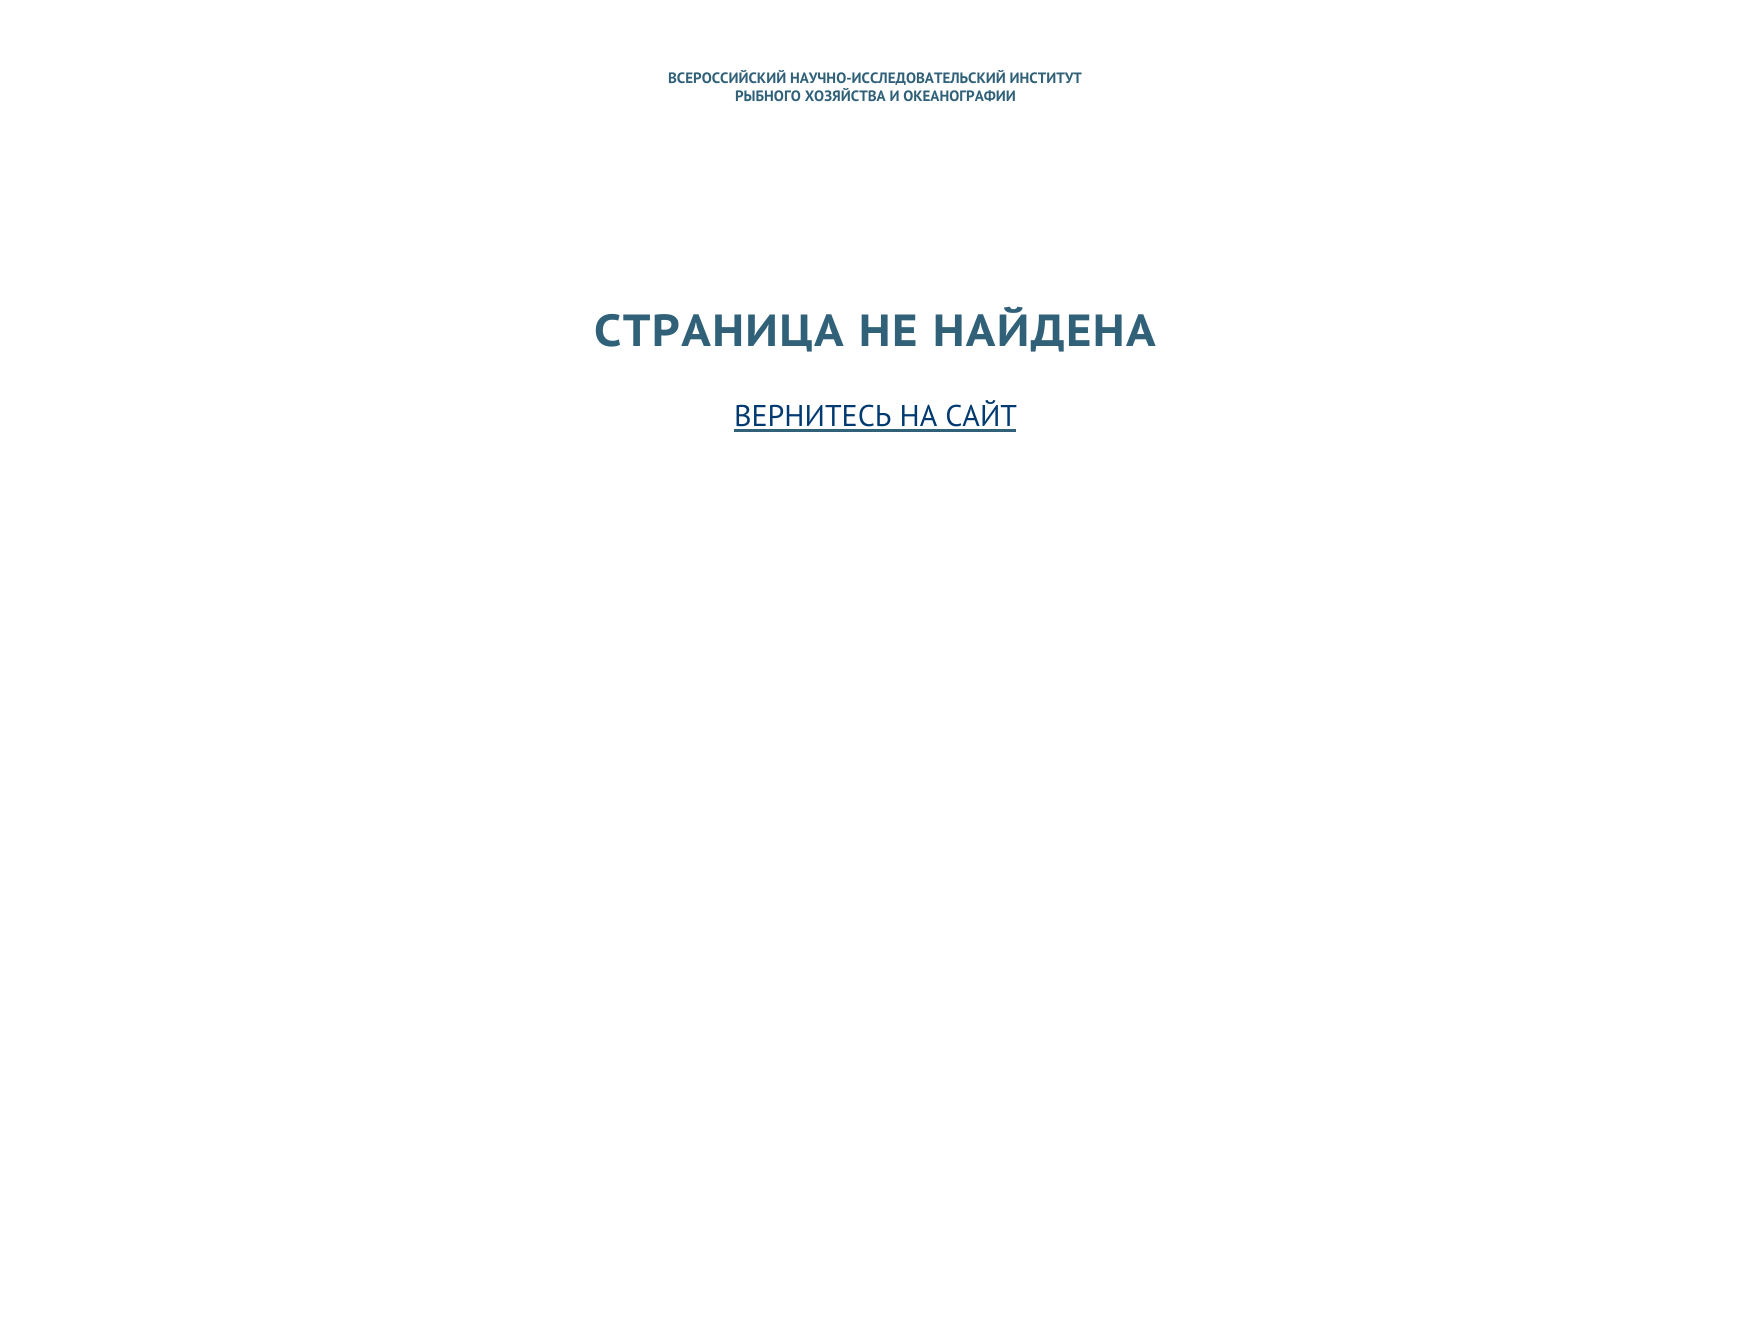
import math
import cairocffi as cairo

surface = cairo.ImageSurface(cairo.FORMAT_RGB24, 1750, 1321)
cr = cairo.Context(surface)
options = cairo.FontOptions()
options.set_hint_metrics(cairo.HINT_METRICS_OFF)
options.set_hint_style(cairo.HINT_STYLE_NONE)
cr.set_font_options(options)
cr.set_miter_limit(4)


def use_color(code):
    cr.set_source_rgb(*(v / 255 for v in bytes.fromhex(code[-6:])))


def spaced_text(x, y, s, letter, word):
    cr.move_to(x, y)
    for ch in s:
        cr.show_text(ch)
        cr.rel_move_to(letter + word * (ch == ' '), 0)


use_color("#ffffff")
cr.paint()
cr.select_font_face("PT Sans", cairo.FONT_SLANT_NORMAL, cairo.FONT_WEIGHT_BOLD)
cr.set_font_size(15)
use_color("#306179")
cr.move_to(668, 83)
cr.show_text("ВСЕРОССИЙСКИЙ НАУЧНО-ИССЛЕДОВАТЕЛЬСКИЙ ИНСТИТУТ")
cr.move_to(735, 101)
cr.show_text("РЫБНОГО ХОЗЯЙСТВА И ОКЕАНОГРАФИИ")
cr.select_font_face("PT Sans Caption", cairo.FONT_SLANT_NORMAL, cairo.FONT_WEIGHT_BOLD)
cr.set_font_size(45)
spaced_text(594, 346, "СТРАНИЦА НЕ НАЙДЕНА", 1.4, 0)
cr.select_font_face("PT Sans")
cr.set_font_size(30)
use_color("#003a70")
cr.move_to(734, 426)
cr.show_text("ВЕРНИТЕСЬ НА САЙТ")
use_color("#306179")
cr.rectangle(734, 429, 282, 3)
cr.fill()
surface.write_to_png("result.png")
